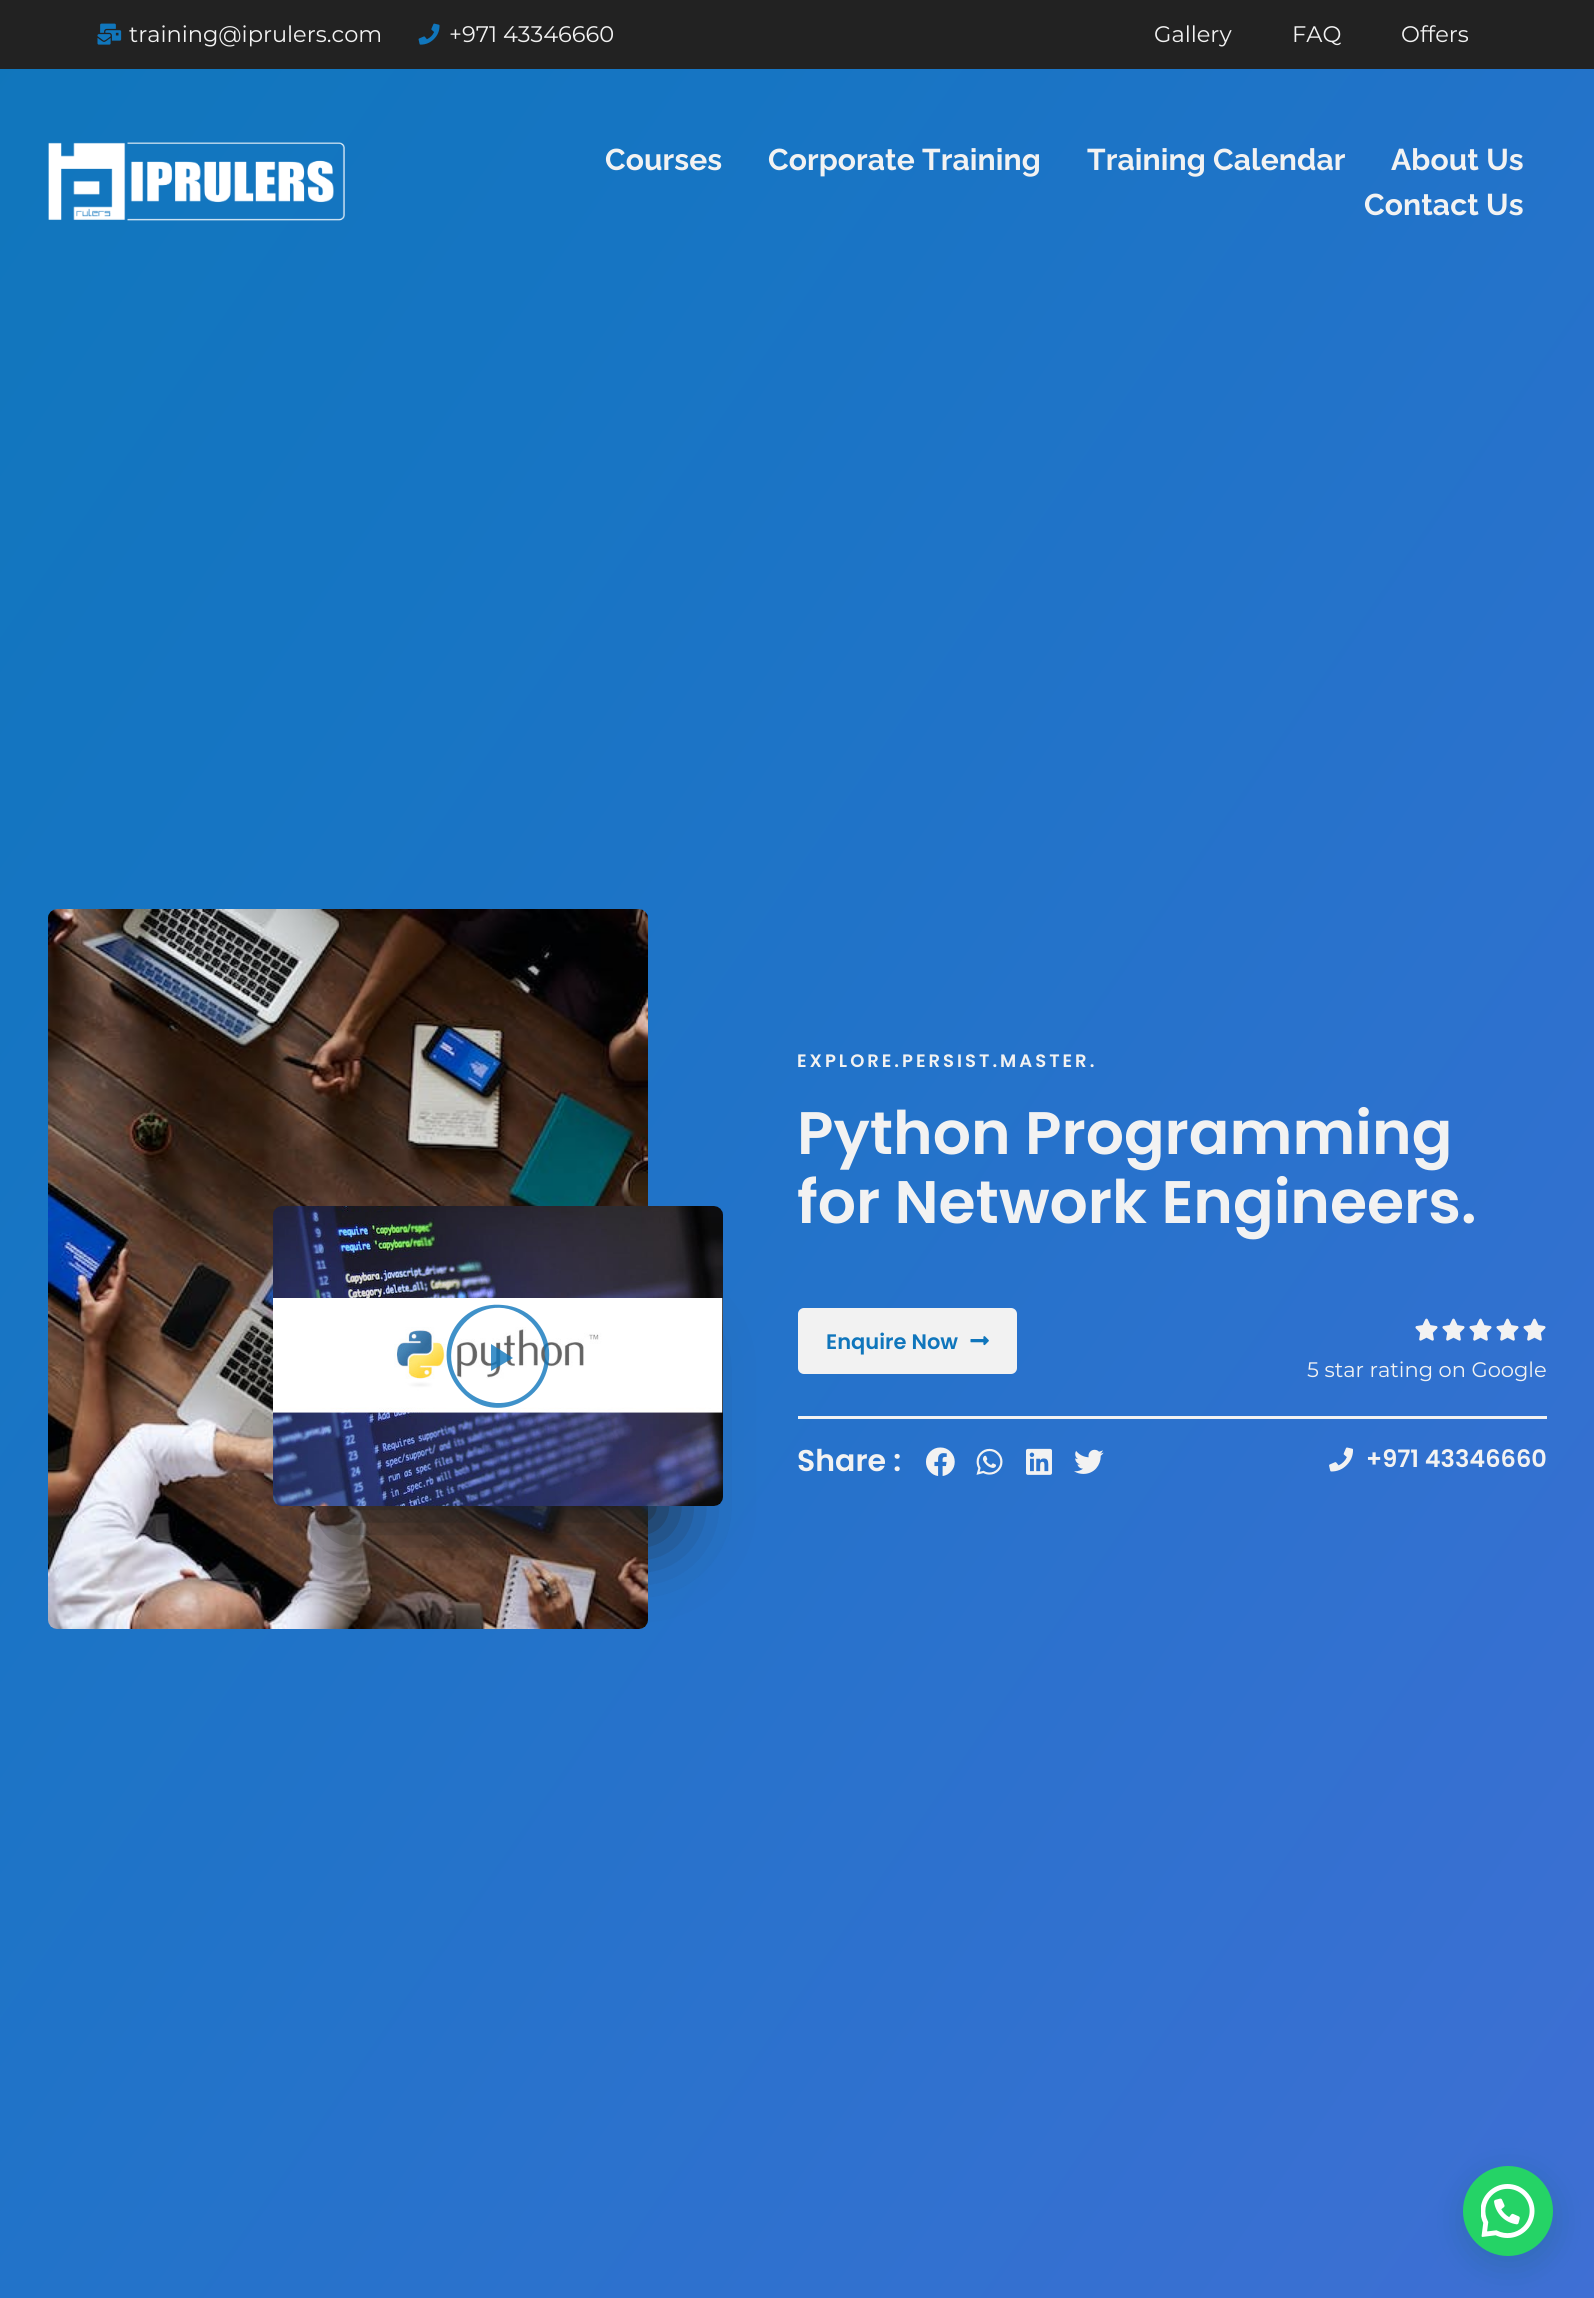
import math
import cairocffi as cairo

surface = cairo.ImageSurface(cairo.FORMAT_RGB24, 1594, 2298)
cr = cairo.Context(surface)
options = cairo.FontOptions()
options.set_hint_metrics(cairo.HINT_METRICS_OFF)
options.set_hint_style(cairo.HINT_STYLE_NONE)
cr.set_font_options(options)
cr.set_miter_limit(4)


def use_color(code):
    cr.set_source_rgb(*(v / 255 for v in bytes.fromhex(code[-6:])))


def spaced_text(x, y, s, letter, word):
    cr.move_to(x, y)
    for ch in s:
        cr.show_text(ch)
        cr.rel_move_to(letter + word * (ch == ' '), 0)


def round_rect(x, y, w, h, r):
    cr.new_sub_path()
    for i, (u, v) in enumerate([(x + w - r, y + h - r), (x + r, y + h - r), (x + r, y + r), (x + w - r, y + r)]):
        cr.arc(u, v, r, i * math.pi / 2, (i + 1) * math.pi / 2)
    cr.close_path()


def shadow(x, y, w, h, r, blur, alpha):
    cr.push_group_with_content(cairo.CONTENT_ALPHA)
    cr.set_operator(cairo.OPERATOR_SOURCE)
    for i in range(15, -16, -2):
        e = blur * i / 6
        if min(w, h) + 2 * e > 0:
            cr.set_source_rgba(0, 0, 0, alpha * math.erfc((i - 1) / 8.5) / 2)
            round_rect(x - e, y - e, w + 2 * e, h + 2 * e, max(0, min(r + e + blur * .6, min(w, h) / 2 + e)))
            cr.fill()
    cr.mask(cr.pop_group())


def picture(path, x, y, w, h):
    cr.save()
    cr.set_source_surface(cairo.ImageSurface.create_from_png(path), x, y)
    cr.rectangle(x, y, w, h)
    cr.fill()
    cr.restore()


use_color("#ffffff")
cr.paint()
use_color("#222222")
cr.rectangle(0, 0, 1594, 69)
cr.fill()
picture("img1.png", 97, 23, 25, 22)
cr.select_font_face("Montserrat Thin")
cr.set_font_size(22.5)
use_color("#f2f2f2")
cr.move_to(129, 42)
cr.show_text("training@iprulers.com")
picture("img2.png", 418, 23, 22, 22)
cr.move_to(449, 42)
cr.show_text("+971 43346660")
cr.move_to(1154, 42)
cr.show_text("Gallery")
cr.move_to(1292, 42)
cr.show_text("FAQ")
cr.move_to(1401, 42)
cr.show_text("Offers")
gradient = cairo.LinearGradient(-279, 402, 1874, 1896)
gradient.add_color_stop_rgba(0, 0.063, 0.463, 0.737, 1)
gradient.add_color_stop_rgba(0.25, 0.086, 0.459, 0.765, 1)
gradient.add_color_stop_rgba(0.5, 0.133, 0.451, 0.788, 1)
gradient.add_color_stop_rgba(0.75, 0.188, 0.443, 0.812, 1)
gradient.add_color_stop_rgba(1, 0.247, 0.435, 0.831, 1)
cr.set_source(gradient)
cr.rectangle(0, 69, 1594, 2229)
cr.fill()
picture("img3.png", 48, 142, 297, 79)
cr.select_font_face("Raleway", cairo.FONT_SLANT_NORMAL, cairo.FONT_WEIGHT_BOLD)
cr.set_font_size(30)
use_color("#f2f2f2")
spaced_text(605, 170, "Courses", 0.1, 0)
spaced_text(768, 170, "Corporate Training", 0.1, 0)
spaced_text(1087, 170, "Training Calendar", 0.1, 0)
spaced_text(1391, 170, "About Us", 0.1, 0)
spaced_text(1364, 215, "Contact Us", 0.1, 0)
picture("img4.png", 48, 909, 600, 720)
use_color("#212121")
shadow(333, 1349, 330, 180, 0, 37.5, 1)
picture("img5.png", 273, 1206, 450, 300)
cr.set_source_rgba(0.063, 0.463, 0.737, 0.8)
cr.new_path()
cr.move_to(534, 1319)
cr.curve_to(526, 1311, 515, 1306, 503, 1305)
cr.curve_to(454, 1300, 428, 1357, 462, 1392)
cr.curve_to(495, 1427, 553, 1400, 549, 1350)
cr.curve_to(548, 1339, 543, 1328, 534, 1319)
cr.close_path()
cr.move_to(531, 1322)
cr.curve_to(561, 1353, 539, 1405, 496, 1403)
cr.curve_to(485, 1402, 475, 1398, 467, 1391)
cr.curve_to(421, 1346, 485, 1278, 531, 1322)
cr.close_path()
cr.move_to(491, 1344)
cr.line_to(491, 1371)
cr.line_to(513, 1358)
cr.close_path()
cr.fill()
cr.select_font_face("Poppins SemiBold")
cr.set_font_size(18)
use_color("#f2f2f2")
spaced_text(797, 1067, "EXPLORE.PERSIST.MASTER.", 3, 0)
cr.set_font_size(60)
cr.move_to(797, 1154)
cr.show_text("Python Programming")
cr.move_to(797, 1223)
cr.show_text("for Network Engineers.")
cr.rectangle(798, 1416, 749, 3)
cr.fill()
round_rect(799, 1309, 217, 64, 5)
cr.fill_preserve()
cr.stroke()
cr.set_font_size(21)
use_color("#1076bc")
cr.move_to(826, 1349)
cr.show_text("Enquire Now")
picture("img6.png", 970, 1336, 19, 10)
picture("img7.png", 1415, 1318, 23, 23)
picture("img8.png", 1415, 1318, 23, 23)
picture("img9.png", 1442, 1318, 23, 23)
picture("img10.png", 1442, 1318, 23, 23)
picture("img11.png", 1469, 1318, 23, 23)
picture("img12.png", 1469, 1318, 23, 23)
picture("img13.png", 1496, 1318, 23, 23)
picture("img14.png", 1496, 1318, 23, 23)
picture("img15.png", 1523, 1318, 23, 23)
picture("img16.png", 1523, 1318, 23, 23)
cr.select_font_face("Montserrat Thin")
use_color("#f2f2f2")
cr.move_to(1307, 1377)
cr.show_text("5 star rating on Google")
cr.select_font_face("Poppins SemiBold")
cr.set_font_size(30)
cr.move_to(797, 1471)
cr.show_text("Share :")
picture("img17.png", 926, 1447, 29, 29)
picture("img18.png", 976, 1448, 27, 27)
picture("img19.png", 1026, 1448, 26, 27)
picture("img20.png", 1074, 1449, 30, 25)
picture("img21.png", 1329, 1447, 24, 25)
cr.set_font_size(24)
cr.move_to(1366, 1467)
cr.show_text("+971 43346660")
use_color("#075e54")
shadow(1464, 2175, 90, 90, 45, 18, 0.24)
use_color("#25d366")
cr.arc(1508, 2211, 45, 0, 2 * math.pi)
cr.fill()
picture("img22.png", 1481, 2184, 54, 54)
surface.write_to_png("result.png")
